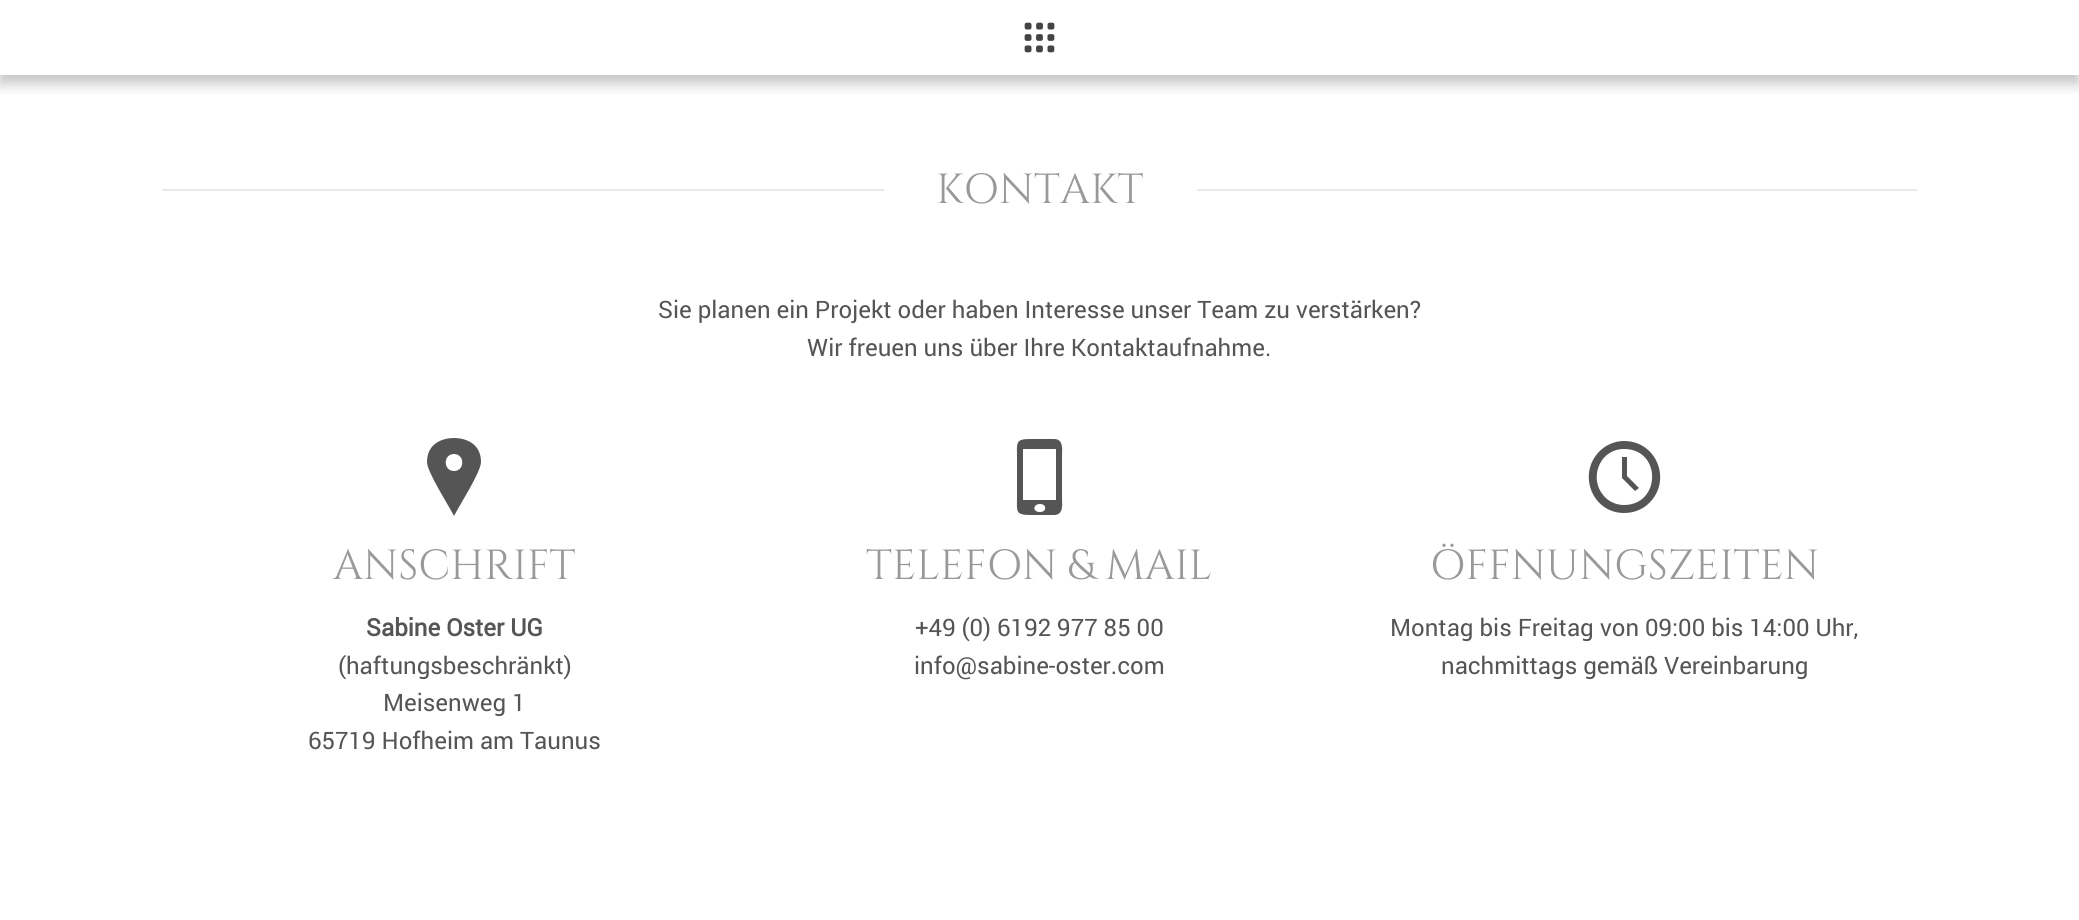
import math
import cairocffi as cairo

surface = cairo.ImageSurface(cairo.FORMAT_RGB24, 2079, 920)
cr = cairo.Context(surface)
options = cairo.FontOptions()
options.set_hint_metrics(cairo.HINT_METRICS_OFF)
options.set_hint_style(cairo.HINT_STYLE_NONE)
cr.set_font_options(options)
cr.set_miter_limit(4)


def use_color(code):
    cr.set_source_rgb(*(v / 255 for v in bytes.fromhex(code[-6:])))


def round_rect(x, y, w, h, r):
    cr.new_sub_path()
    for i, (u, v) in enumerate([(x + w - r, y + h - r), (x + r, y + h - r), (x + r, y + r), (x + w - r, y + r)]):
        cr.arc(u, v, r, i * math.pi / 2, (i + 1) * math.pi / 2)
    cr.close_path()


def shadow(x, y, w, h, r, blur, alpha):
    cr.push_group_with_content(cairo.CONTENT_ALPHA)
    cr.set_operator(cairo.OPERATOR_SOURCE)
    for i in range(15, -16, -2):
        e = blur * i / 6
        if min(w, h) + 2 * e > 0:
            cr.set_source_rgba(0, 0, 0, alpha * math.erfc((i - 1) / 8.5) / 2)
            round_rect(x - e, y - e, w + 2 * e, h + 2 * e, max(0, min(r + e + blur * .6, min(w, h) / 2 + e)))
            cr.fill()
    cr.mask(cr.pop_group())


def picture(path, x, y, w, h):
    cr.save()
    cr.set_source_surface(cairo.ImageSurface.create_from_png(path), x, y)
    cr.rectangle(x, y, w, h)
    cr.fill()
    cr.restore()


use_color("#ffffff")
cr.paint()
cr.save()
cr.rectangle(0, 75, 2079, 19)
cr.clip()
use_color("#000000")
shadow(0, 8, 2079, 75, 0, 7.5, 0.25)
cr.restore()
picture("img1.png", 1024, 22, 31, 31)
use_color("#e8e8e8")
cr.rectangle(162, 189, 1755, 2)
cr.fill()
use_color("#ffffff")
cr.rectangle(884, 189, 313, 2)
cr.fill()
cr.select_font_face("Cinzel")
cr.set_font_size(42)
use_color("#999999")
cr.move_to(936, 203)
cr.show_text("KONTAKT")
cr.select_font_face("Roboto")
cr.set_font_size(24)
use_color("#555555")
cr.move_to(658, 318)
cr.show_text("Sie planen ein Projekt oder haben Interesse unser Team zu verstärken?")
cr.move_to(807, 356)
cr.show_text("Wir freuen uns über Ihre Kontaktaufnahme.")
cr.new_path()
cr.move_to(454, 438)
cr.curve_to(465, 438, 481, 443, 481, 462)
cr.curve_to(481, 472, 459, 506, 454, 516)
cr.curve_to(449, 506, 427, 472, 427, 462)
cr.curve_to(427, 443, 443, 438, 454, 438)
cr.close_path()
cr.move_to(454, 471)
cr.curve_to(465, 471, 465, 454, 454, 454)
cr.curve_to(443, 454, 443, 471, 454, 471)
cr.close_path()
cr.fill()
cr.select_font_face("Cinzel")
cr.set_font_size(42)
use_color("#999999")
cr.move_to(333, 579)
cr.show_text("ANSCHRIFT")
cr.select_font_face("Roboto", cairo.FONT_SLANT_NORMAL, cairo.FONT_WEIGHT_BOLD)
cr.set_font_size(24)
use_color("#555555")
cr.move_to(366, 636)
cr.show_text("Sabine Oster UG")
cr.select_font_face("Roboto")
cr.move_to(338, 674)
cr.show_text("(haftungsbeschränkt)")
cr.move_to(383, 711)
cr.show_text("Meisenweg 1")
cr.move_to(308, 749)
cr.show_text("65719 Hofheim am Taunus")
cr.new_path()
cr.move_to(1054, 439)
cr.line_to(1030, 439)
cr.curve_to(1015, 439, 1017, 443, 1017, 457)
cr.line_to(1017, 497)
cr.curve_to(1017, 511, 1015, 515, 1030, 515)
cr.line_to(1054, 515)
cr.curve_to(1064, 515, 1062, 504, 1062, 497)
cr.line_to(1062, 457)
cr.curve_to(1062, 450, 1064, 439, 1054, 439)
cr.close_path()
cr.move_to(1040, 512)
cr.curve_to(1032, 512, 1033, 504, 1040, 504)
cr.curve_to(1047, 504, 1047, 512, 1040, 512)
cr.close_path()
cr.move_to(1056, 500)
cr.line_to(1023, 500)
cr.line_to(1023, 449)
cr.line_to(1056, 449)
cr.close_path()
cr.fill()
cr.select_font_face("Cinzel")
cr.set_font_size(42)
use_color("#999999")
cr.move_to(866, 579)
cr.show_text("TELEFON & MAIL")
cr.select_font_face("Roboto")
cr.set_font_size(24)
use_color("#555555")
cr.move_to(915, 636)
cr.show_text("+49 (0) 6192 977 85 00")
cr.move_to(914, 674)
cr.show_text("info@sabine-oster.com")
cr.new_path()
cr.move_to(1624, 441)
cr.curve_to(1616, 441, 1608, 444, 1602, 449)
cr.curve_to(1576, 471, 1591, 513, 1624, 513)
cr.curve_to(1633, 513, 1641, 510, 1647, 505)
cr.curve_to(1673, 483, 1658, 441, 1624, 441)
cr.close_path()
cr.move_to(1624, 505)
cr.curve_to(1618, 505, 1612, 503, 1607, 499)
cr.curve_to(1587, 482, 1598, 449, 1624, 449)
cr.curve_to(1662, 449, 1661, 505, 1624, 505)
cr.close_path()
cr.move_to(1627, 457)
cr.line_to(1622, 457)
cr.line_to(1622, 478)
cr.line_to(1635, 491)
cr.line_to(1639, 488)
cr.line_to(1627, 476)
cr.close_path()
cr.fill()
cr.select_font_face("Cinzel")
cr.set_font_size(42)
use_color("#999999")
cr.move_to(1430, 579)
cr.show_text("ÖFFNUNGSZEITEN")
cr.select_font_face("Roboto")
cr.set_font_size(24)
use_color("#555555")
cr.move_to(1390, 636)
cr.show_text("Montag bis Freitag von 09:00 bis 14:00 Uhr,")
cr.move_to(1441, 674)
cr.show_text("nachmittags gemäß Vereinbarung")
surface.write_to_png("result.png")
